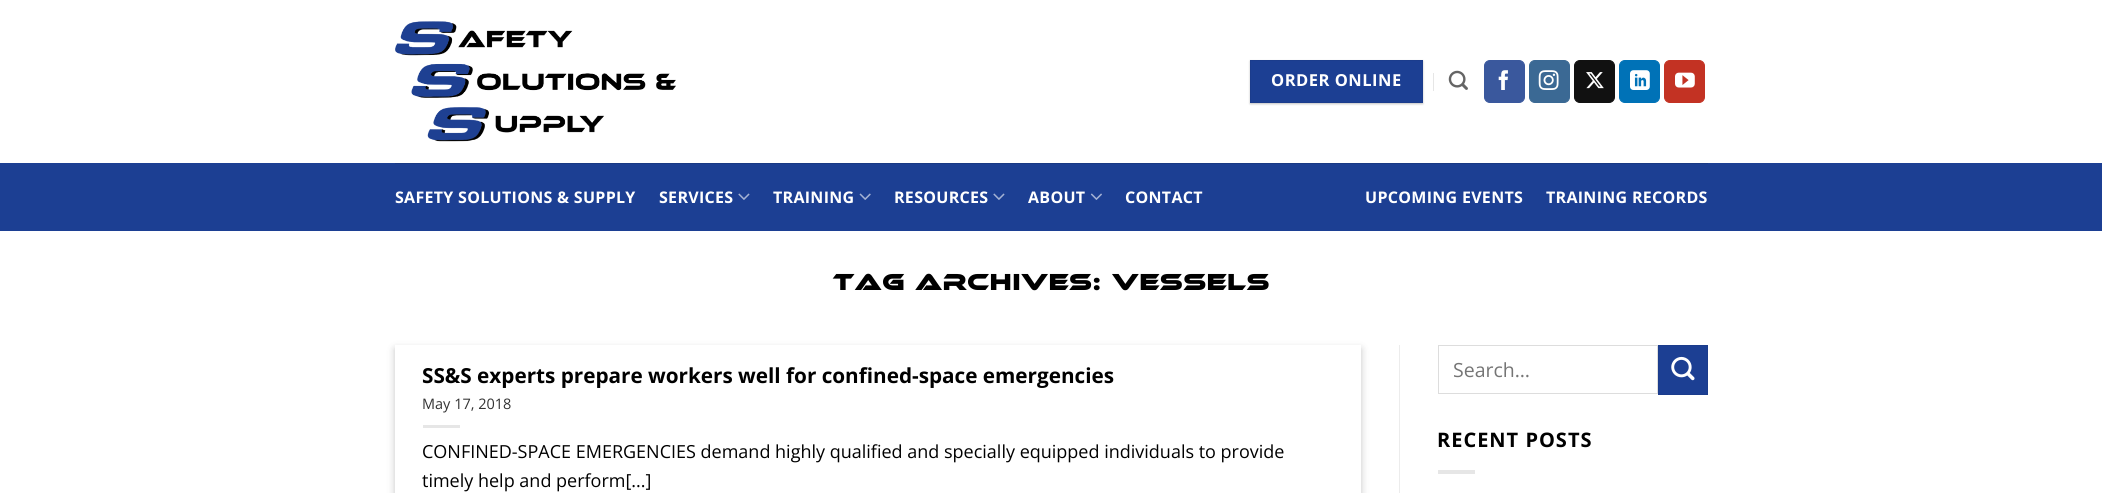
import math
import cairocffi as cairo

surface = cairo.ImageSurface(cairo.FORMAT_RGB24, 2102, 493)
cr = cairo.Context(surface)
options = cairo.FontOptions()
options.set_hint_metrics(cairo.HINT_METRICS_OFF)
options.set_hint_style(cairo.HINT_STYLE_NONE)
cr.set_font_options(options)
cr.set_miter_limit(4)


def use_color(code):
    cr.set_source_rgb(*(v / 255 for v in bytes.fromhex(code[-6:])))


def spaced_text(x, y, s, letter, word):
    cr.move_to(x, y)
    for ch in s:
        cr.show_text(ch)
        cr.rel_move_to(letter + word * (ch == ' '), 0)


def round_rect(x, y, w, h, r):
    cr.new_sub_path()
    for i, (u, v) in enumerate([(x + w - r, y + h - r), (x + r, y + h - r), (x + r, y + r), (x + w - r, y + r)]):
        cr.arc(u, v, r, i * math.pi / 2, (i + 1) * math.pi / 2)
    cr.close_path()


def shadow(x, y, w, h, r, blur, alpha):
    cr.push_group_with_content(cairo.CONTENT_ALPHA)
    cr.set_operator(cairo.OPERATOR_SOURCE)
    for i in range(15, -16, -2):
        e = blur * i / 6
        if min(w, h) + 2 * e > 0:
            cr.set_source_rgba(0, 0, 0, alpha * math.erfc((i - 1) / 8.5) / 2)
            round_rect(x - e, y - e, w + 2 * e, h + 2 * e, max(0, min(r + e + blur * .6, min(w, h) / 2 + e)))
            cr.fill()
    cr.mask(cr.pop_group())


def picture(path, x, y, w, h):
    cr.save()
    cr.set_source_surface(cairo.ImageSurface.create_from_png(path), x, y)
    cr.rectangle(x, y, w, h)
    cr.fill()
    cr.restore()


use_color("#ffffff")
cr.paint()
picture("img1.png", 395, 21, 281, 121)
use_color("#000000")
shadow(1250, 61, 173, 43, 0, 1, 0.24)
use_color("#1c3f93")
cr.rectangle(1250.5, 60.5, 172, 42)
cr.fill_preserve()
use_color("#1b3c8c")
cr.set_line_width(1)
cr.stroke()
cr.select_font_face("Open Sans", cairo.FONT_SLANT_NORMAL, cairo.FONT_WEIGHT_BOLD)
cr.set_font_size(16.5)
use_color("#ffffff")
spaced_text(1271, 86, "ORDER ONLINE", 0.5, 0)
use_color("#e6e6e6")
cr.rectangle(1433, 73, 1, 18)
cr.fill()
picture("img2.png", 1448, 70, 20, 20)
use_color("#3a589d")
round_rect(1484.5, 60.5, 40, 42, 5.5)
cr.fill_preserve()
cr.stroke()
picture("img3.png", 1498, 70, 10, 20)
use_color("#3b6994")
round_rect(1529.5, 60.5, 40, 42, 5.5)
cr.fill_preserve()
cr.stroke()
picture("img4.png", 1538, 70, 21, 20)
use_color("#111111")
round_rect(1574.5, 60.5, 40, 42, 5.5)
cr.fill_preserve()
cr.stroke()
picture("img5.png", 1586, 72, 18, 17)
use_color("#0072b7")
round_rect(1619.5, 60.5, 40, 42, 5.5)
cr.fill_preserve()
cr.stroke()
picture("img6.png", 1630, 70, 20, 20)
use_color("#c33223")
round_rect(1664.5, 60.5, 40, 42, 5.5)
cr.fill_preserve()
cr.stroke()
picture("img7.png", 1675, 72, 20, 16)
use_color("#1c3f93")
cr.rectangle(0, 163, 2102, 68)
cr.fill()
use_color("#193984")
cr.rectangle(395, 163, 1313, 1)
cr.fill()
cr.set_font_size(16)
use_color("#ffffff")
spaced_text(395, 203, "SAFETY SOLUTIONS & SUPPLY", 0.3, 0)
spaced_text(659, 203, "SERVICES", 0.3, 0)
picture("img8.png", 738, 193, 12, 7)
spaced_text(773, 203, "TRAINING", 0.3, 0)
picture("img9.png", 859, 193, 12, 7)
spaced_text(894, 203, "RESOURCES", 0.3, 0)
picture("img8.png", 993, 193, 12, 7)
spaced_text(1028, 203, "ABOUT", 0.3, 0)
picture("img10.png", 1090, 193, 12, 7)
spaced_text(1125, 203, "CONTACT", 0.3, 0)
spaced_text(1365, 203, "UPCOMING EVENTS", 0.3, 0)
spaced_text(1546, 203, "TRAINING RECORDS", 0.3, 0)
cr.select_font_face("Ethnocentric", cairo.FONT_SLANT_NORMAL, cairo.FONT_WEIGHT_BOLD)
cr.set_font_size(23)
use_color("#000000")
spaced_text(833, 290, "TAG ARCHIVES: VESSELS", 1.15, 0)
cr.save()
cr.set_fill_rule(cairo.FILL_RULE_EVEN_ODD)
cr.new_path()
cr.move_to(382, 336)
cr.line_to(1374, 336)
cr.line_to(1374, 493)
cr.line_to(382, 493)
cr.close_path()
cr.move_to(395, 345)
cr.line_to(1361, 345)
cr.line_to(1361, 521)
cr.line_to(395, 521)
cr.close_path()
cr.clip()
use_color("#000000")
shadow(395, 349, 966, 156, 0, 4, 0.23)
cr.restore()
cr.select_font_face("Open Sans", cairo.FONT_SLANT_NORMAL, cairo.FONT_WEIGHT_BOLD)
cr.set_font_size(20.7)
cr.move_to(422, 383)
cr.show_text("SS&S experts prepare workers well for confined-space emergencies")
cr.select_font_face("Open Sans")
cr.set_font_size(14.5)
use_color("#333333")
cr.move_to(422, 409)
cr.show_text("May 17, 2018")
use_color("#e6e6e6")
cr.rectangle(423, 425, 37, 3)
cr.fill()
cr.set_font_size(18)
use_color("#000000")
cr.move_to(422, 458)
cr.show_text("CONFINED-SPACE EMERGENCIES demand highly qualified and specially equipped individuals to provide")
cr.move_to(422, 487)
cr.show_text("timely help and perform[...]")
use_color("#ececec")
cr.rectangle(1399, 345, 1, 148)
cr.fill()
cr.rectangle(1438.5, 345.5, 219, 48)
use_color("#dddddd")
cr.stroke()
cr.set_font_size(19.5)
use_color("#757575")
cr.move_to(1453, 377)
cr.show_text("Search…")
use_color("#1c3f93")
cr.rectangle(1658.5, 345.5, 49, 49)
cr.fill_preserve()
use_color("#1b3c8c")
cr.stroke()
picture("img11.png", 1671, 356, 24, 25)
cr.select_font_face("Open Sans", cairo.FONT_SLANT_NORMAL, cairo.FONT_WEIGHT_BOLD)
cr.set_font_size(20)
use_color("#000000")
spaced_text(1437, 447, "RECENT POSTS", 1, 0)
use_color("#e6e6e6")
cr.rectangle(1438, 470, 37, 4)
cr.fill()
surface.write_to_png("result.png")
